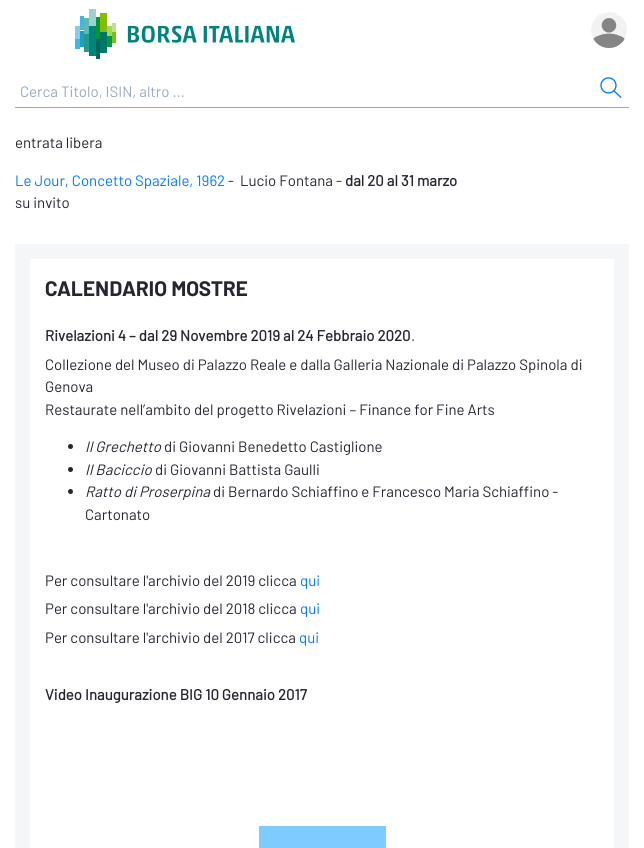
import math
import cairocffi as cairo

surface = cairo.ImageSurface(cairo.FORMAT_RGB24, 644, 848)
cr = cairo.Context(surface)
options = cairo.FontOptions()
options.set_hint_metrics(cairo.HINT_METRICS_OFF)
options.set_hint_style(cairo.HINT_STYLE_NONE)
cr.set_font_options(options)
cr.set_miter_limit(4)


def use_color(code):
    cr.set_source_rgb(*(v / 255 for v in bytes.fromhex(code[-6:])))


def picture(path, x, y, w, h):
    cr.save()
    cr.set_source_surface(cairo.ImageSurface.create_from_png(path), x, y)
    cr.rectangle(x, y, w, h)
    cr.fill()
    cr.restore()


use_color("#ffffff")
cr.paint()
picture("img1.png", 75, 9, 220, 50)
picture("img2.png", 591, 12, 36, 36)
use_color("#98a9bc")
cr.rectangle(15, 107, 614, 1)
cr.fill()
cr.select_font_face("Barlow")
cr.set_font_size(15)
cr.move_to(20, 97)
cr.show_text("Cerca Titolo, ISIN, altro ...")
picture("img3.png", 600, 77, 22, 21)
use_color("#252631")
cr.move_to(15, 148)
cr.show_text("entrata libera")
use_color("#007aff")
cr.move_to(15, 186)
cr.show_text("Le Jour, Concetto Spaziale, 1962")
use_color("#252631")
cr.move_to(228, 186)
cr.show_text("-  Lucio Fontana -")
cr.select_font_face("Barlow", cairo.FONT_SLANT_NORMAL, cairo.FONT_WEIGHT_BOLD)
cr.move_to(345, 186)
cr.show_text("dal 20 al 31 marzo")
cr.select_font_face("Barlow")
cr.move_to(15, 208)
cr.show_text("su invito")
use_color("#f5f6f7")
cr.rectangle(15, 244, 614, 604)
cr.fill()
use_color("#ffffff")
cr.rectangle(30, 259, 584, 589)
cr.fill()
cr.select_font_face("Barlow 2", cairo.FONT_SLANT_NORMAL, cairo.FONT_WEIGHT_BOLD)
cr.set_font_size(21)
use_color("#252631")
cr.move_to(45, 296)
cr.show_text("CALENDARIO MOSTRE")
cr.select_font_face("Barlow", cairo.FONT_SLANT_NORMAL, cairo.FONT_WEIGHT_BOLD)
cr.set_font_size(15)
cr.move_to(45, 341)
cr.show_text("Rivelazioni 4 – dal 29 Novembre 2019 al 24 Febbraio 2020")
cr.select_font_face("Barlow")
cr.move_to(411, 341)
cr.show_text(".")
cr.move_to(45, 370)
cr.show_text("Collezione del Museo di Palazzo Reale e dalla Galleria Nazionale di Palazzo Spinola di")
cr.move_to(45, 392)
cr.show_text("Genova")
cr.move_to(45, 415)
cr.show_text("Restaurate nell’ambito del progetto Rivelazioni – Finance for Fine Arts")
cr.new_path()
cr.arc(70.5, 446.5, 2.5, 0, 2 * math.pi)
cr.fill()
cr.select_font_face("Barlow", cairo.FONT_SLANT_ITALIC)
cr.move_to(85, 452)
cr.show_text("Il Grechetto")
cr.select_font_face("Barlow")
cr.move_to(164, 452)
cr.show_text("di Giovanni Benedetto Castiglione")
cr.new_path()
cr.arc(70.5, 469.5, 2.5, 0, 2 * math.pi)
cr.fill()
cr.select_font_face("Barlow", cairo.FONT_SLANT_ITALIC)
cr.move_to(85, 475)
cr.show_text("Il Baciccio")
cr.select_font_face("Barlow")
cr.move_to(155, 475)
cr.show_text("di Giovanni Battista Gaulli")
cr.new_path()
cr.arc(70.5, 491.5, 2.5, 0, 2 * math.pi)
cr.fill()
cr.select_font_face("Barlow", cairo.FONT_SLANT_ITALIC)
cr.move_to(85, 497)
cr.show_text("Ratto di Proserpina")
cr.select_font_face("Barlow")
cr.move_to(213, 497)
cr.show_text("di Bernardo Schiaffino e Francesco Maria Schiaffino -")
cr.move_to(85, 520)
cr.show_text("Cartonato")
cr.move_to(45, 586)
cr.show_text("Per consultare l'archivio del 2019 clicca")
use_color("#007aff")
cr.move_to(300, 586)
cr.show_text("qui")
use_color("#252631")
cr.move_to(45, 614)
cr.show_text("Per consultare l'archivio del 2018 clicca")
use_color("#007aff")
cr.move_to(300, 614)
cr.show_text("qui")
use_color("#252631")
cr.move_to(45, 643)
cr.show_text("Per consultare l'archivio del 2017 clicca")
use_color("#007aff")
cr.move_to(299, 643)
cr.show_text("qui")
cr.select_font_face("Barlow", cairo.FONT_SLANT_NORMAL, cairo.FONT_WEIGHT_BOLD)
use_color("#252631")
cr.move_to(45, 700)
cr.show_text("Video Inaugurazione BIG 10 Gennaio 2017")
use_color("#7dcbff")
cr.rectangle(259, 826, 127, 22)
cr.fill()
use_color("#86cfff")
cr.rectangle(310, 847, 1, 1)
cr.fill()
surface.write_to_png("result.png")
